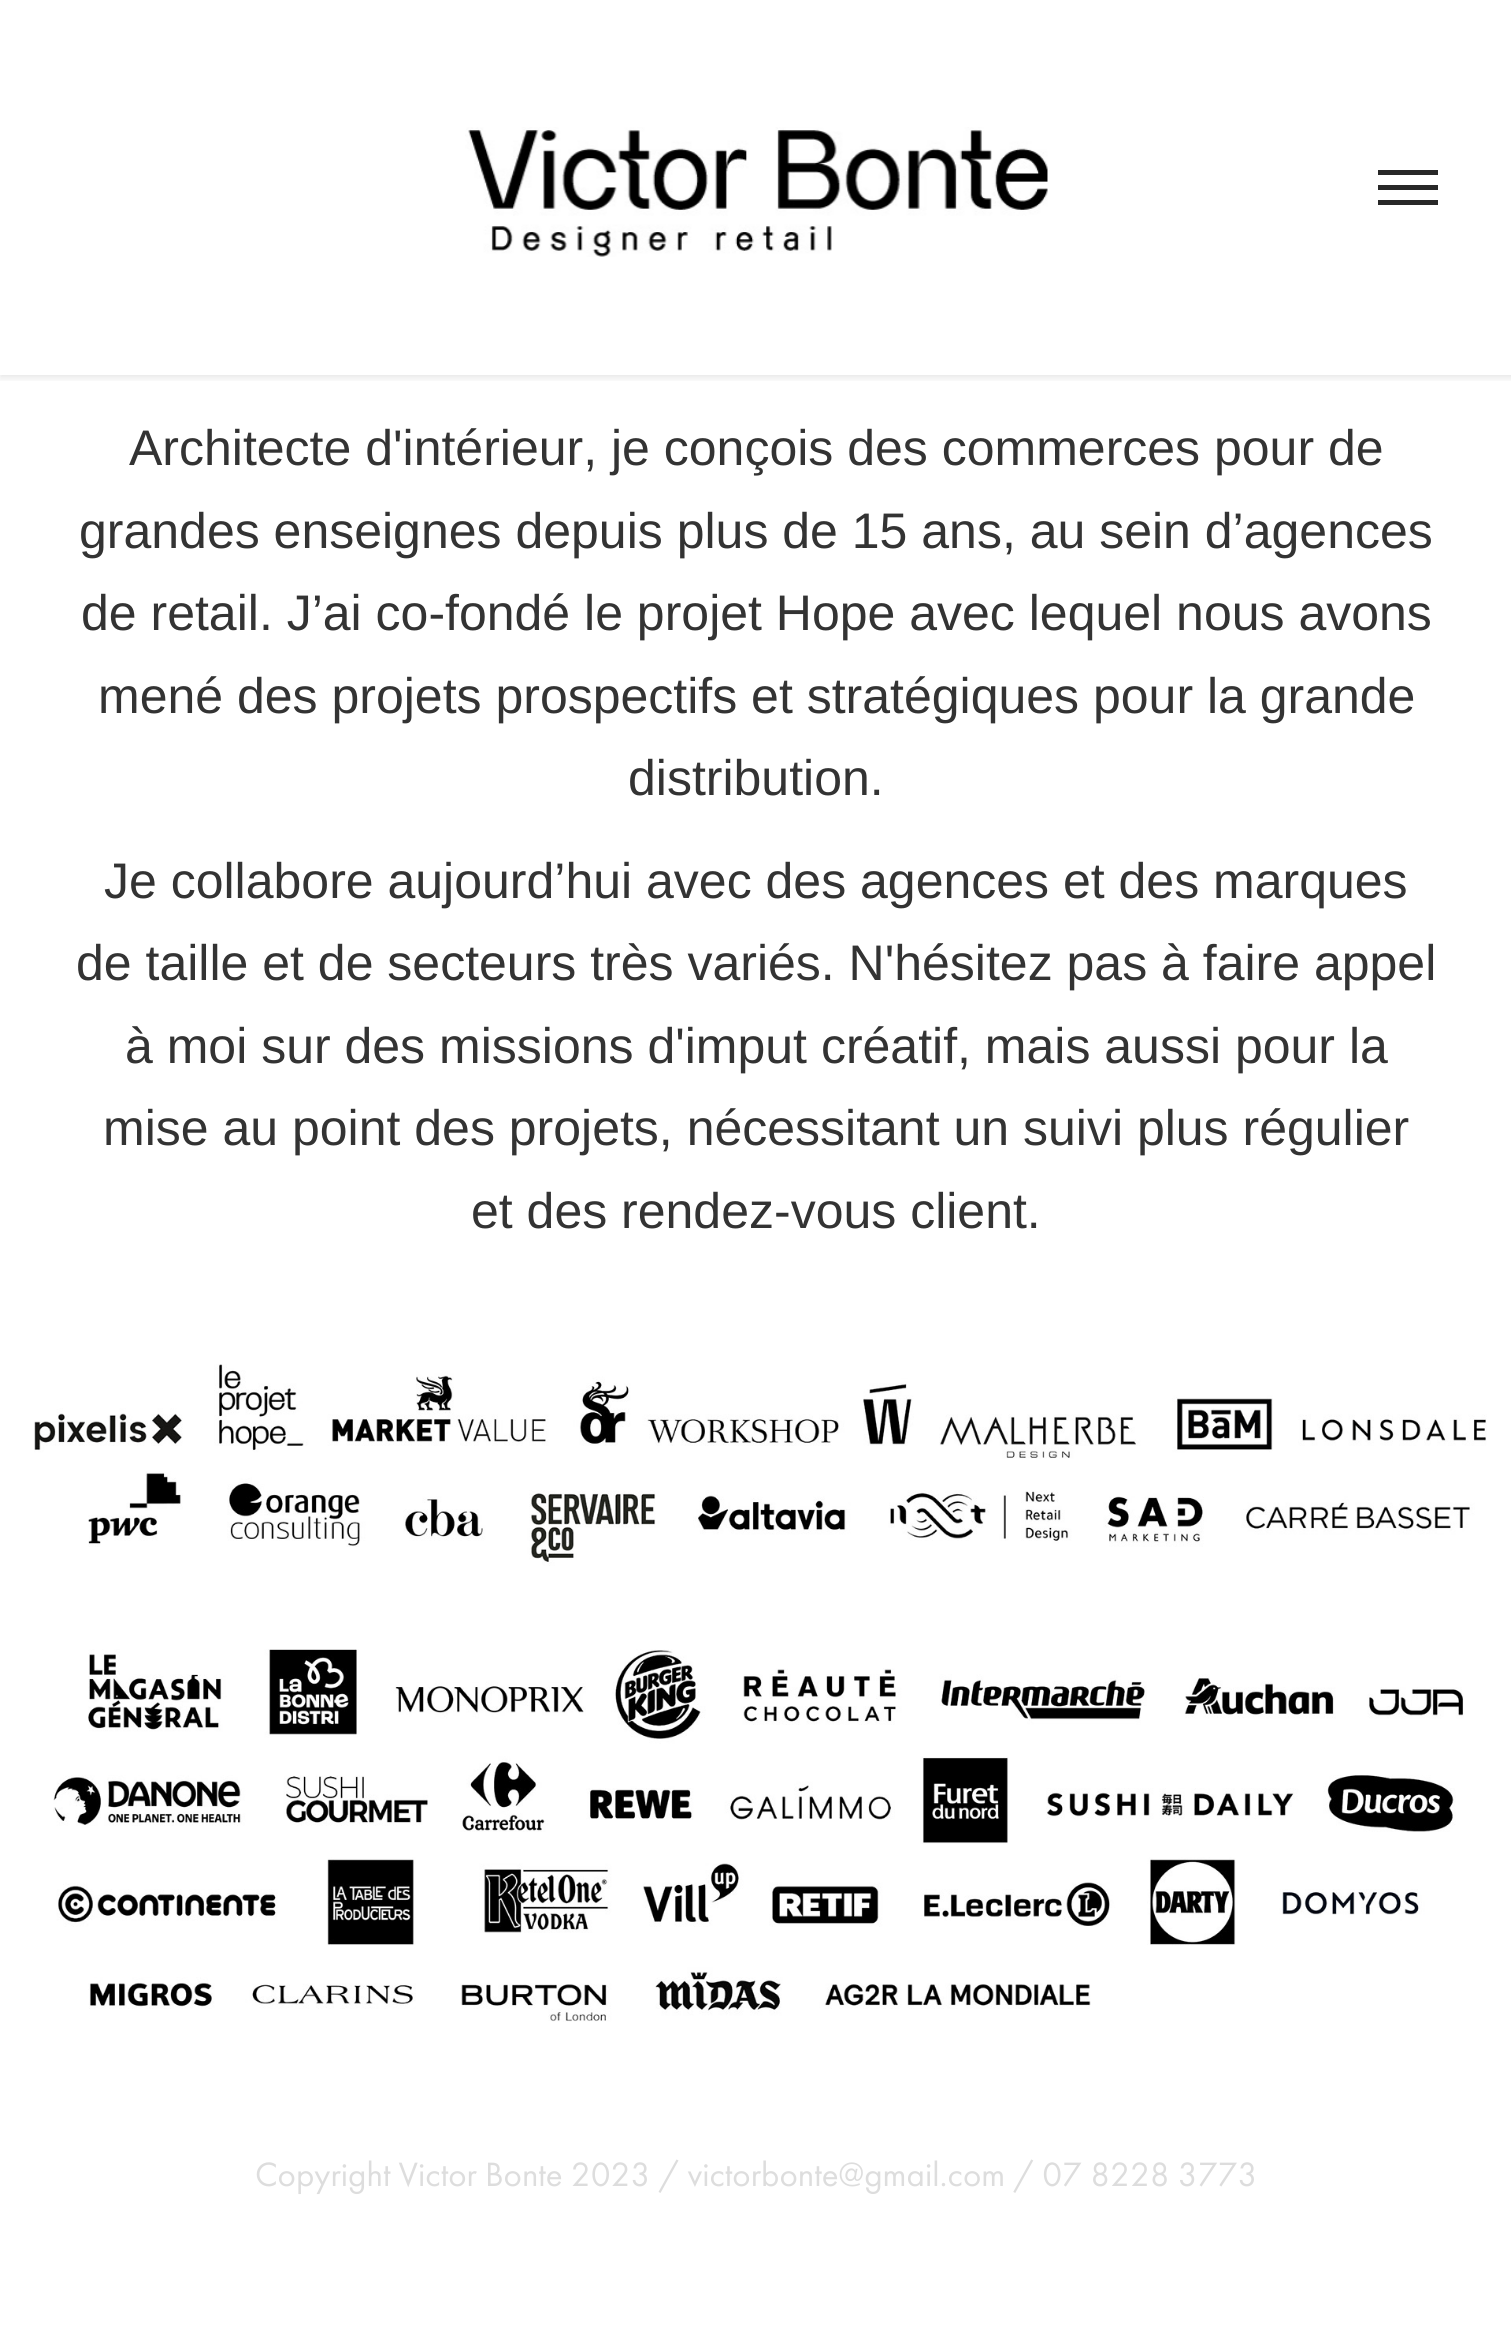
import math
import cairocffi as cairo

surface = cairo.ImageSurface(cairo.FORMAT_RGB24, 1511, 2326)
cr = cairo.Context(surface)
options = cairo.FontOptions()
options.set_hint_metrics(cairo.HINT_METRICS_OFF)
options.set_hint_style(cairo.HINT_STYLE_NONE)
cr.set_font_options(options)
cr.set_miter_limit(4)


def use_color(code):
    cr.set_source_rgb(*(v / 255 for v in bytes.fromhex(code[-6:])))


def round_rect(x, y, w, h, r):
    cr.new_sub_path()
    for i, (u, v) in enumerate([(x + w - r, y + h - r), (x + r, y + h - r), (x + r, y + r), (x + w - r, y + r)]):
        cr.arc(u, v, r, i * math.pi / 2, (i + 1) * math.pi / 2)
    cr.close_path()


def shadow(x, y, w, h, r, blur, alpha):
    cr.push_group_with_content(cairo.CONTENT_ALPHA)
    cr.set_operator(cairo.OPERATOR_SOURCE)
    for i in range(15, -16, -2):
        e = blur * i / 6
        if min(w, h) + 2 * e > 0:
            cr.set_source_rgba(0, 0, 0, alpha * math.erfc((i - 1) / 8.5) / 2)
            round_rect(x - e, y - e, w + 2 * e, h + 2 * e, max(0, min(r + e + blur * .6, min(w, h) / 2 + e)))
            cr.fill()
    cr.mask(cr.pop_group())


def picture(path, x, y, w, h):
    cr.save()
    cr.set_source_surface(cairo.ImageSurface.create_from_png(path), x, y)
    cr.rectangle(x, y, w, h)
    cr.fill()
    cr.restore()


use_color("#ffffff")
cr.paint()
cr.save()
cr.rectangle(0, 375, 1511, 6)
cr.clip()
use_color("#000000")
shadow(0, 3, 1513, 375, 0, 4, 0.1)
cr.restore()
picture("img1.png", 465, 127, 583, 130)
use_color("#282828")
cr.rectangle(1378, 170, 60, 5)
cr.fill()
cr.rectangle(1378, 185, 60, 5)
cr.fill()
cr.rectangle(1378, 200, 60, 5)
cr.fill()
cr.select_font_face("Liberation Sans")
cr.set_font_size(50)
use_color("#333333")
cr.move_to(129, 465)
cr.show_text("Architecte d'intérieur, je conçois des commerces pour de")
cr.move_to(79, 548)
cr.show_text("grandes enseignes depuis plus de 15 ans, au sein d’agences")
cr.move_to(81, 630)
cr.show_text("de retail. J’ai co-fondé le projet Hope avec lequel nous avons")
cr.move_to(98, 713)
cr.show_text("mené des projets prospectifs et stratégiques pour la grande")
cr.move_to(628, 795)
cr.show_text("distribution.")
cr.move_to(104, 898)
cr.show_text("Je collabore aujourd’hui avec des agences et des marques")
cr.move_to(76, 980)
cr.show_text("de taille et de secteurs très variés. N'hésitez pas à faire appel")
cr.move_to(125, 1063)
cr.show_text("à moi sur des missions d'imput créatif, mais aussi pour la")
cr.move_to(103, 1145)
cr.show_text("mise au point des projets, nécessitant un suivi plus régulier")
cr.move_to(471, 1228)
cr.show_text("et des rendez-vous client.")
picture("img2.png", 34, 1364, 1453, 202)
picture("img3.png", 53, 1649, 1411, 373)
cr.select_font_face("Futura PT")
cr.set_font_size(35)
use_color("#dddddd")
cr.move_to(255, 2186)
cr.show_text("Copyright Victor Bonte 2023 / victorbonte@gmail.com / 07 8228 3773")
surface.write_to_png("result.png")
